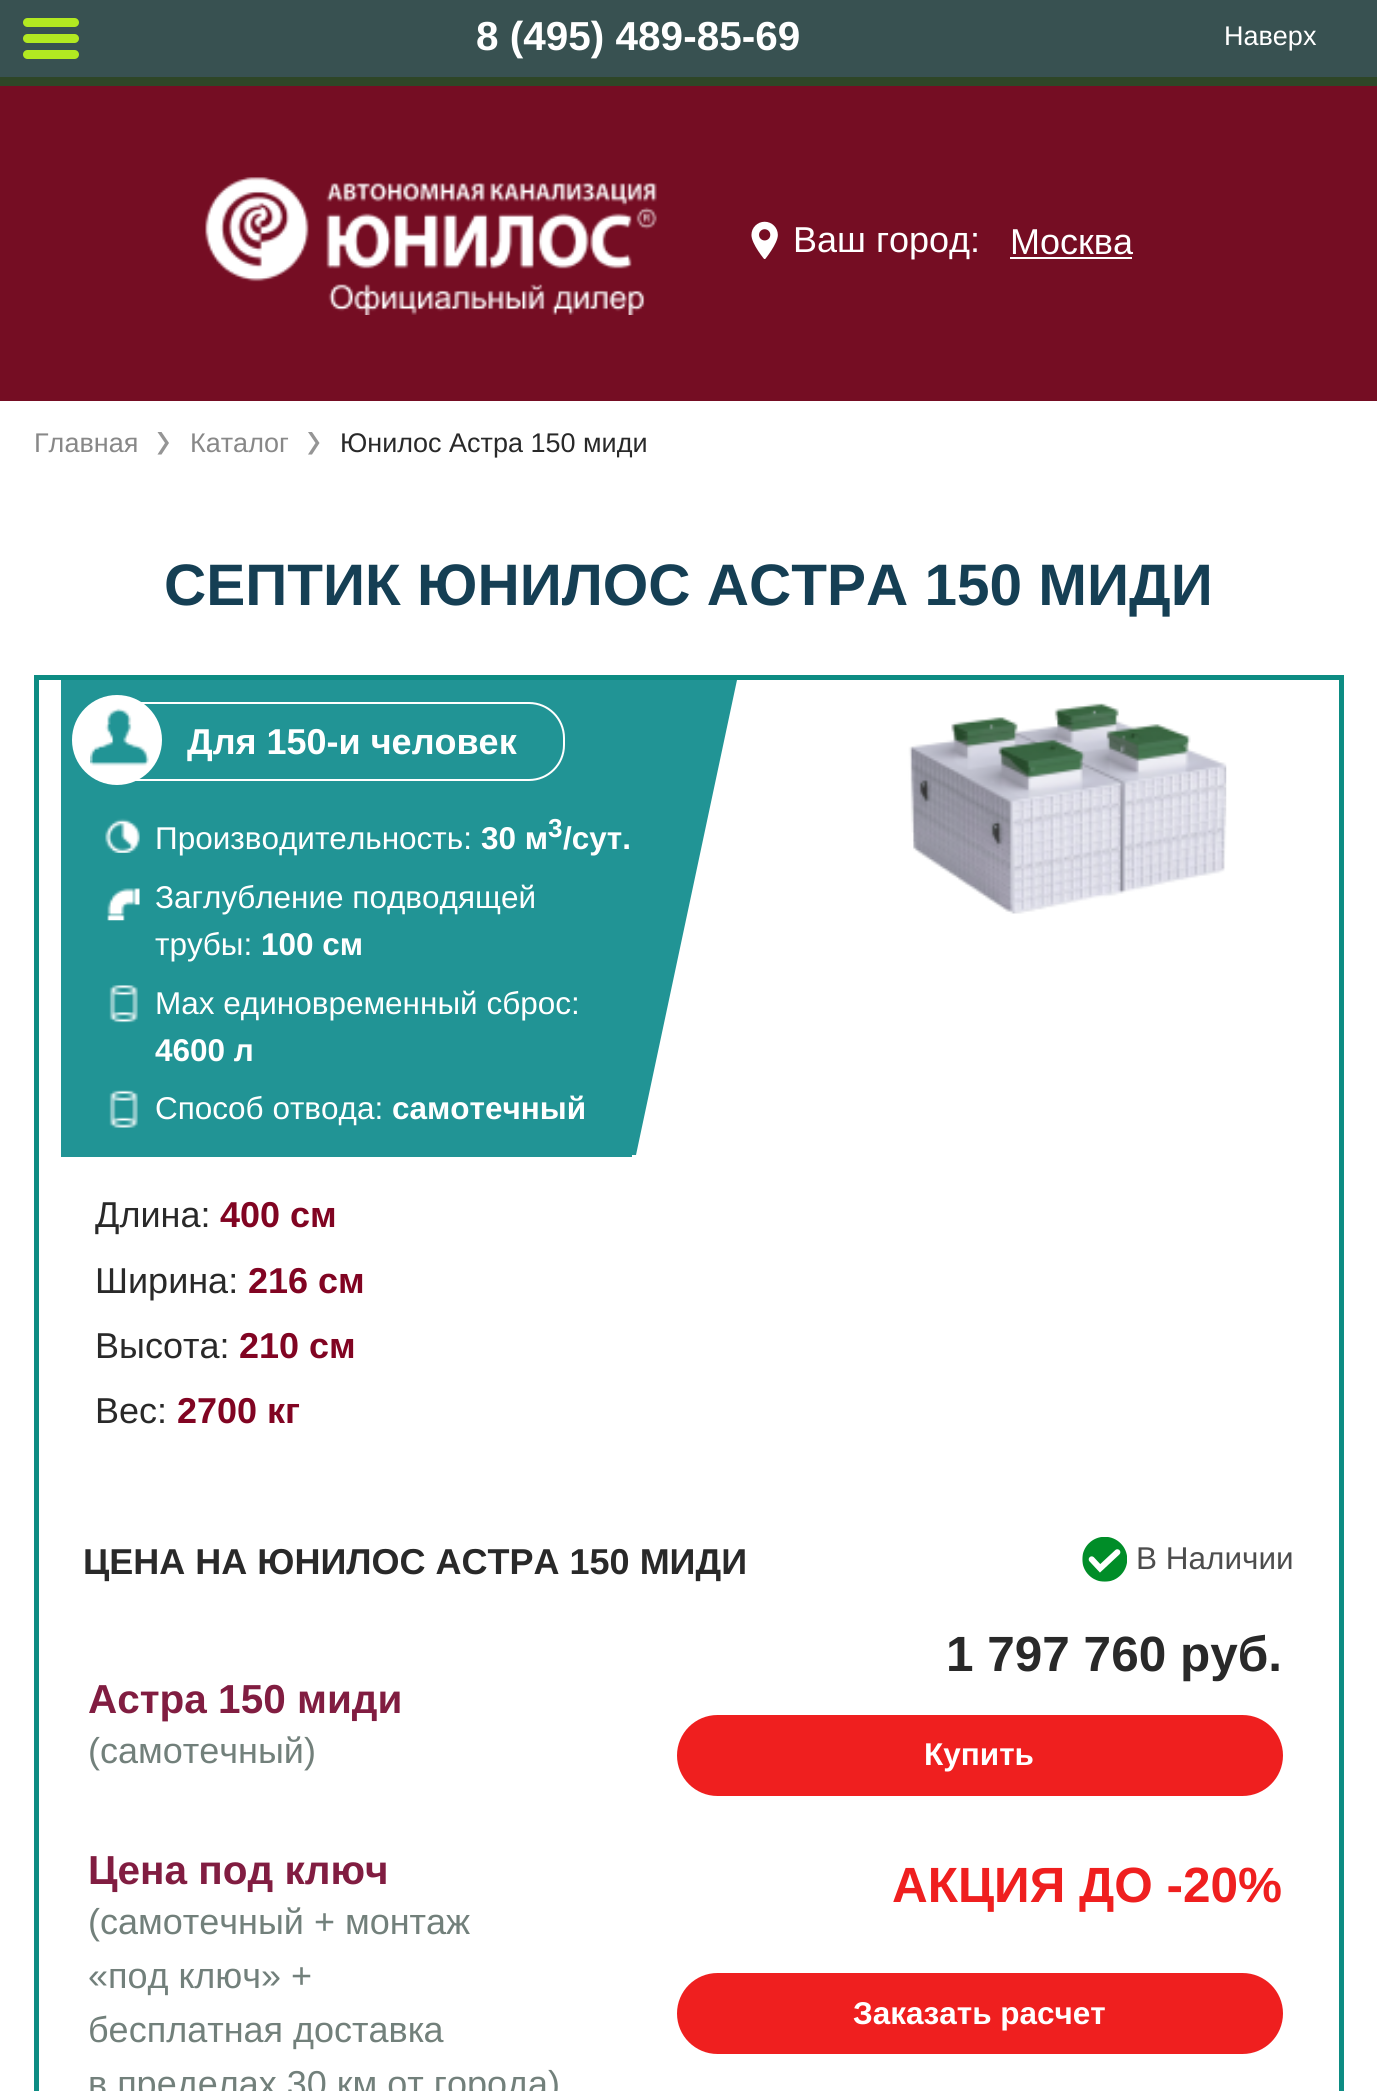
import math
import cairocffi as cairo

surface = cairo.ImageSurface(cairo.FORMAT_RGB24, 1377, 2091)
cr = cairo.Context(surface)
options = cairo.FontOptions()
options.set_hint_metrics(cairo.HINT_METRICS_OFF)
options.set_hint_style(cairo.HINT_STYLE_NONE)
cr.set_font_options(options)
cr.set_miter_limit(4)


def use_color(code):
    cr.set_source_rgb(*(v / 255 for v in bytes.fromhex(code[-6:])))


def round_rect(x, y, w, h, r):
    cr.new_sub_path()
    for i, (u, v) in enumerate([(x + w - r, y + h - r), (x + r, y + h - r), (x + r, y + r), (x + w - r, y + r)]):
        cr.arc(u, v, r, i * math.pi / 2, (i + 1) * math.pi / 2)
    cr.close_path()


def picture(path, x, y, w, h):
    cr.save()
    cr.set_source_surface(cairo.ImageSurface.create_from_png(path), x, y)
    cr.rectangle(x, y, w, h)
    cr.fill()
    cr.restore()


use_color("#2e4627")
cr.paint()
use_color("#385151")
cr.rectangle(0, 0, 1377, 77)
cr.fill()
use_color("#b2e921")
round_rect(23, 18, 56, 9, 4.5)
cr.fill()
round_rect(23, 34, 56, 9, 4.5)
cr.fill()
round_rect(23, 50, 56, 9, 4.5)
cr.fill()
cr.select_font_face("Liberation Sans", cairo.FONT_SLANT_NORMAL, cairo.FONT_WEIGHT_BOLD)
cr.set_font_size(40.5)
use_color("#ffffff")
cr.move_to(476, 50)
cr.show_text("8 (495) 489-85-69")
cr.select_font_face("Liberation Sans")
cr.set_font_size(27)
cr.move_to(1224, 45)
cr.show_text("Наверх")
use_color("#750d23")
cr.rectangle(0, 86, 1377, 315)
cr.fill()
picture("img1.png", 205, 177, 452, 138)
picture("img2.png", 751, 221, 27, 38)
cr.set_font_size(36)
use_color("#ffffff")
cr.move_to(793, 252)
cr.show_text("Ваш город:")
cr.move_to(1010, 254)
cr.show_text("Москва")
cr.rectangle(1010, 257, 122, 2)
cr.fill()
cr.rectangle(0, 401, 1377, 1690)
cr.fill()
use_color("#959595")
cr.set_fill_rule(cairo.FILL_RULE_EVEN_ODD)
cr.new_path()
cr.move_to(157.5, 454.5)
cr.line_to(165, 443)
cr.line_to(157.5, 432)
cr.line_to(161.5, 432)
cr.line_to(169, 443)
cr.line_to(161.5, 454.5)
cr.close_path()
cr.fill()
cr.set_font_size(27)
use_color("#888888")
cr.move_to(34, 452)
cr.show_text("Главная")
use_color("#959595")
cr.new_path()
cr.move_to(308, 454.5)
cr.line_to(315.5, 443)
cr.line_to(308, 432)
cr.line_to(312, 432)
cr.line_to(319.5, 443)
cr.line_to(312, 454.5)
cr.close_path()
cr.fill()
use_color("#888888")
cr.move_to(190, 452)
cr.show_text("Каталог")
use_color("#292929")
cr.move_to(340, 452)
cr.show_text("Юнилос Астра 150 миди")
cr.select_font_face("Liberation Sans", cairo.FONT_SLANT_NORMAL, cairo.FONT_WEIGHT_BOLD)
cr.set_font_size(58.5)
use_color("#153f54")
cr.move_to(164, 605)
cr.show_text("СЕПТИК ЮНИЛОС АСТРА 150 МИДИ")
use_color("#0d8c83")
cr.rectangle(34, 675, 1309, 5)
cr.fill()
cr.rectangle(1339, 675, 5, 1416)
cr.fill()
cr.rectangle(34, 675, 5, 1416)
cr.fill()
use_color("#219495")
cr.set_fill_rule(cairo.FILL_RULE_WINDING)
cr.new_path()
cr.move_to(621, 680)
cr.line_to(737, 680)
cr.line_to(636, 1155)
cr.line_to(621, 1155)
cr.close_path()
cr.fill()
cr.rectangle(61, 680, 571, 477)
cr.fill()
round_rect(96, 703, 468, 77, 35)
use_color("#ffffff")
cr.stroke()
cr.arc(117, 740, 45, 0, 2 * math.pi)
cr.fill()
picture("img3.png", 90, 708, 59, 58)
cr.set_font_size(36)
cr.move_to(187, 754)
cr.show_text("Для 150-и человек")
picture("img4.png", 105, 818, 35, 35)
cr.select_font_face("Liberation Sans")
cr.set_font_size(31.5)
cr.move_to(155, 849)
cr.show_text("Производительность:")
cr.select_font_face("Liberation Sans", cairo.FONT_SLANT_NORMAL, cairo.FONT_WEIGHT_BOLD)
cr.move_to(481, 849)
cr.show_text("30 м")
cr.set_font_size(26)
cr.move_to(548, 837)
cr.show_text("3")
cr.set_font_size(31.5)
cr.move_to(563, 849)
cr.show_text("/сут.")
picture("img5.png", 107, 888, 33, 33)
cr.select_font_face("Liberation Sans")
cr.move_to(155, 908)
cr.show_text("Заглубление подводящей")
cr.move_to(155, 955)
cr.show_text("трубы:")
cr.select_font_face("Liberation Sans", cairo.FONT_SLANT_NORMAL, cairo.FONT_WEIGHT_BOLD)
cr.move_to(261, 955)
cr.show_text("100 см")
picture("img6.png", 109, 985, 29, 38)
cr.select_font_face("Liberation Sans")
cr.move_to(155, 1014)
cr.show_text("Max единовременный сброс:")
cr.select_font_face("Liberation Sans", cairo.FONT_SLANT_NORMAL, cairo.FONT_WEIGHT_BOLD)
cr.move_to(155, 1061)
cr.show_text("4600 л")
picture("img7.png", 109, 1090, 29, 38)
cr.select_font_face("Liberation Sans")
cr.move_to(155, 1119)
cr.show_text("Способ отвода:")
cr.select_font_face("Liberation Sans", cairo.FONT_SLANT_NORMAL, cairo.FONT_WEIGHT_BOLD)
cr.move_to(392, 1119)
cr.show_text("самотечный")
cr.select_font_face("Liberation Sans")
cr.set_font_size(36)
use_color("#292929")
cr.move_to(95, 1227)
cr.show_text("Длина:")
cr.select_font_face("Liberation Sans", cairo.FONT_SLANT_NORMAL, cairo.FONT_WEIGHT_BOLD)
use_color("#810422")
cr.move_to(220, 1227)
cr.show_text("400 см")
cr.select_font_face("Liberation Sans")
use_color("#292929")
cr.move_to(95, 1293)
cr.show_text("Ширина:")
cr.select_font_face("Liberation Sans", cairo.FONT_SLANT_NORMAL, cairo.FONT_WEIGHT_BOLD)
use_color("#810422")
cr.move_to(248, 1293)
cr.show_text("216 см")
cr.select_font_face("Liberation Sans")
use_color("#292929")
cr.move_to(95, 1358)
cr.show_text("Высота:")
cr.select_font_face("Liberation Sans", cairo.FONT_SLANT_NORMAL, cairo.FONT_WEIGHT_BOLD)
use_color("#810422")
cr.move_to(239, 1358)
cr.show_text("210 см")
cr.select_font_face("Liberation Sans")
use_color("#292929")
cr.move_to(95, 1423)
cr.show_text("Вес:")
cr.select_font_face("Liberation Sans", cairo.FONT_SLANT_NORMAL, cairo.FONT_WEIGHT_BOLD)
use_color("#810422")
cr.move_to(177, 1423)
cr.show_text("2700 кг")
picture("img8.png", 908, 703, 319, 211)
use_color("#292929")
cr.move_to(83, 1574)
cr.show_text("ЦЕНА НА ЮНИЛОС АСТРА 150 МИДИ")
picture("img9.png", 1082, 1537, 45, 45)
cr.select_font_face("Liberation Sans")
cr.set_font_size(31.5)
use_color("#4d4d4d")
cr.move_to(1136, 1569)
cr.show_text("В Наличии")
cr.select_font_face("Liberation Sans", cairo.FONT_SLANT_NORMAL, cairo.FONT_WEIGHT_BOLD)
cr.set_font_size(40.5)
use_color("#811d41")
cr.move_to(88, 1713)
cr.show_text("Астра 150 миди")
cr.select_font_face("Liberation Sans")
cr.set_font_size(36)
use_color("#72807b")
cr.move_to(88, 1763)
cr.show_text("(самотечный)")
cr.select_font_face("Liberation Sans", cairo.FONT_SLANT_NORMAL, cairo.FONT_WEIGHT_BOLD)
cr.set_font_size(49.5)
use_color("#292929")
cr.move_to(946, 1671)
cr.show_text("1 797 760 руб.")
use_color("#ef1f1f")
round_rect(677, 1715, 606, 81, 40.5)
cr.fill()
cr.set_font_size(31.5)
use_color("#ffffff")
cr.move_to(924, 1765)
cr.show_text("Купить")
cr.set_font_size(40.5)
use_color("#811d41")
cr.move_to(88, 1884)
cr.show_text("Цена под ключ")
cr.select_font_face("Liberation Sans")
cr.set_font_size(36)
use_color("#72807b")
cr.move_to(88, 1934)
cr.show_text("(самотечный + монтаж")
cr.move_to(88, 1988)
cr.show_text("«под ключ» +")
cr.move_to(88, 2042)
cr.show_text("бесплатная доставка")
cr.move_to(88, 2096)
cr.show_text("в пределах 30 км от города)")
cr.select_font_face("Liberation Sans", cairo.FONT_SLANT_NORMAL, cairo.FONT_WEIGHT_BOLD)
cr.set_font_size(49.5)
use_color("#ef1f1f")
cr.move_to(892, 1902)
cr.show_text("АКЦИЯ ДО -20%")
round_rect(677, 1973, 606, 81, 40.5)
cr.fill()
cr.set_font_size(31.5)
use_color("#ffffff")
cr.move_to(853, 2024)
cr.show_text("Заказать расчет")
surface.write_to_png("result.png")
